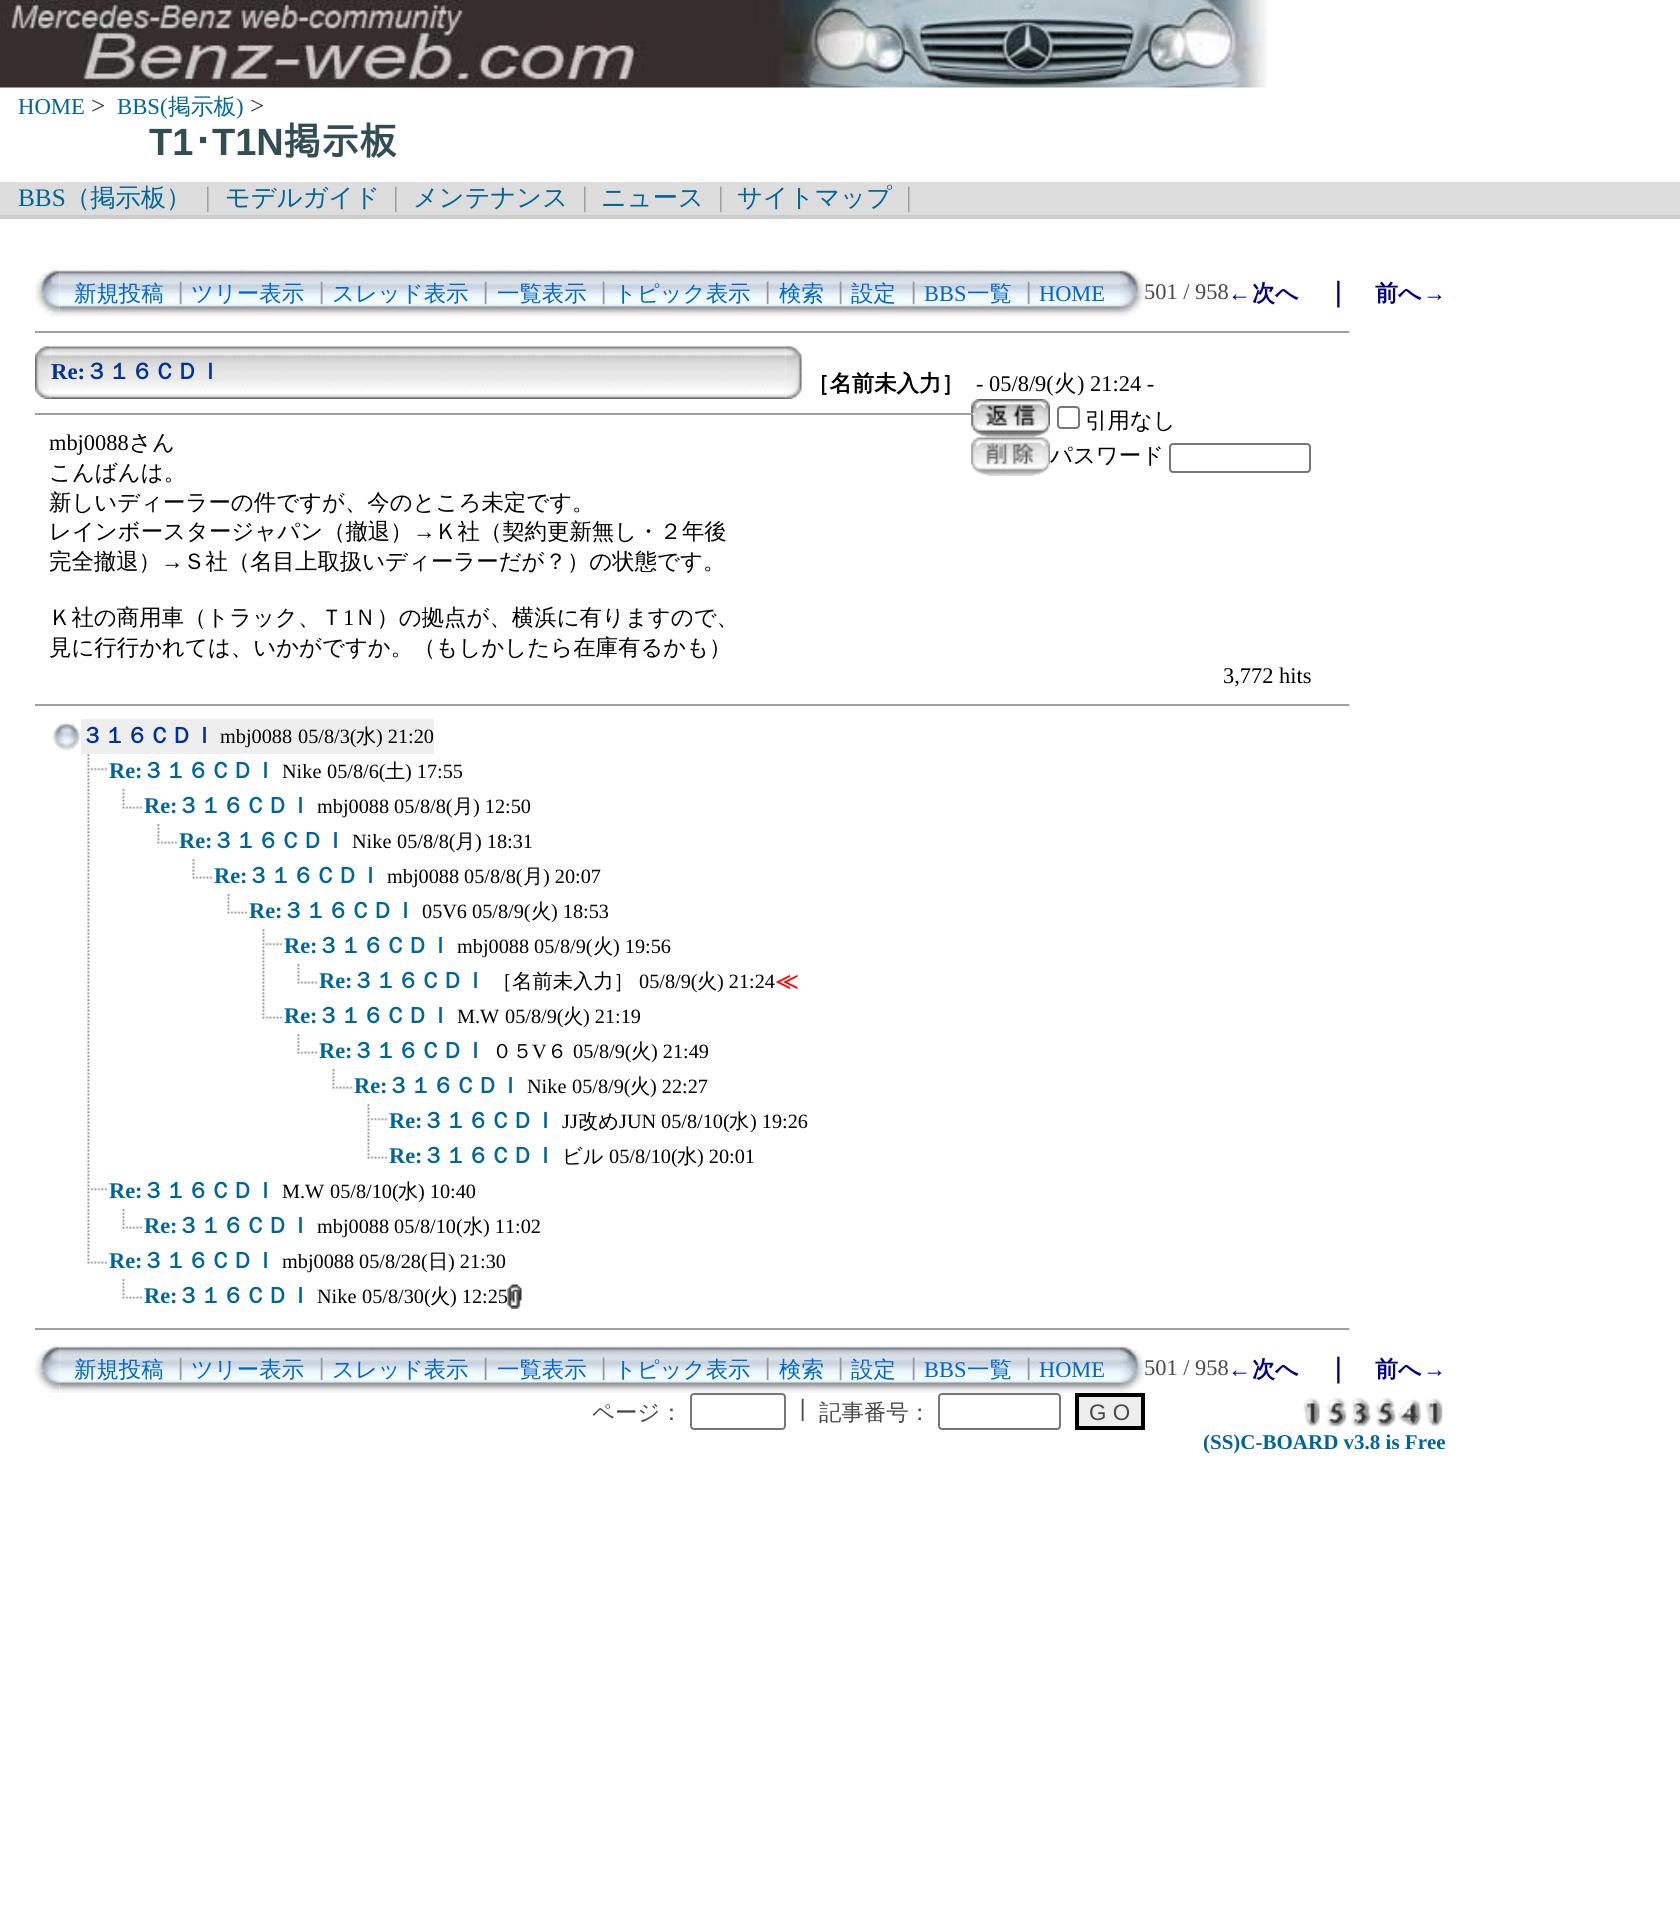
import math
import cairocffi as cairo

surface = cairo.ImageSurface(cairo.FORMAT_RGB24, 1680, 1929)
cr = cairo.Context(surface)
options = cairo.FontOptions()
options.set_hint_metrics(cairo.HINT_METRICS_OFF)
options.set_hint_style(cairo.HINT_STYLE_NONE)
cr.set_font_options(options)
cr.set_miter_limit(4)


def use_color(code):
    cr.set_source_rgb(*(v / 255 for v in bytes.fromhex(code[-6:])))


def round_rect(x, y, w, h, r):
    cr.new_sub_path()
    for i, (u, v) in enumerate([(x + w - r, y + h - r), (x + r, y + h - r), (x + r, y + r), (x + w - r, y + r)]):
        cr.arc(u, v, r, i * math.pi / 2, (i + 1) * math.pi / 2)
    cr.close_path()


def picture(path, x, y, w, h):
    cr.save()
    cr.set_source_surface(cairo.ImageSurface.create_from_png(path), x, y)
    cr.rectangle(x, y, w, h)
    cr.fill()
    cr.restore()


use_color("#ffffff")
cr.paint()
picture("img1.png", 0, 0, 1267, 88)
cr.select_font_face("Liberation Serif")
cr.set_font_size(22.75)
use_color("#006699")
cr.move_to(18, 114)
cr.show_text("HOME")
cr.set_font_size(25.25)
use_color("#333333")
cr.move_to(91, 114)
cr.show_text(">")
cr.set_font_size(22.75)
use_color("#006699")
cr.move_to(117, 114)
cr.show_text("BBS(")
cr.select_font_face("WenQuanYi Zen Hei Medium")
cr.move_to(168, 114)
cr.show_text("掲示板")
cr.select_font_face("Liberation Serif")
cr.move_to(236, 114)
cr.show_text(")")
cr.set_font_size(25.25)
use_color("#333333")
cr.move_to(250, 114)
cr.show_text(">")
cr.select_font_face("Liberation Sans", cairo.FONT_SLANT_NORMAL, cairo.FONT_WEIGHT_BOLD)
cr.set_font_size(38)
use_color("#334d55")
cr.move_to(149, 155)
cr.show_text("T1")
cr.select_font_face("IPAPGothic", cairo.FONT_SLANT_NORMAL, cairo.FONT_WEIGHT_BOLD)
cr.move_to(193, 155)
cr.show_text("･")
cr.select_font_face("Liberation Sans", cairo.FONT_SLANT_NORMAL, cairo.FONT_WEIGHT_BOLD)
cr.move_to(212, 155)
cr.show_text("T1N")
cr.select_font_face("IPAPGothic", cairo.FONT_SLANT_NORMAL, cairo.FONT_WEIGHT_BOLD)
cr.move_to(283, 155)
cr.show_text("掲示板")
use_color("#cccccc")
cr.rectangle(0, 215, 1680, 4)
cr.fill()
use_color("#dddddd")
cr.rectangle(0, 182, 1680, 33)
cr.fill()
cr.select_font_face("Liberation Serif")
cr.set_font_size(25.25)
use_color("#006699")
cr.move_to(18, 206)
cr.show_text("BBS")
cr.select_font_face("WenQuanYi Zen Hei Medium")
cr.move_to(65, 206)
cr.show_text("（掲示板）")
cr.select_font_face("Liberation Serif")
cr.set_font_size(28)
use_color("#999999")
cr.move_to(205, 206)
cr.show_text("|")
cr.select_font_face("WenQuanYi Zen Hei Medium")
cr.set_font_size(25.25)
use_color("#006699")
cr.move_to(225, 206)
cr.show_text("モデルガイド")
cr.select_font_face("Liberation Serif")
cr.set_font_size(28)
use_color("#999999")
cr.move_to(393, 206)
cr.show_text("|")
cr.select_font_face("WenQuanYi Zen Hei Medium")
cr.set_font_size(25.25)
use_color("#006699")
cr.move_to(413, 206)
cr.show_text("メンテナンス")
cr.select_font_face("Liberation Serif")
cr.set_font_size(28)
use_color("#999999")
cr.move_to(582, 206)
cr.show_text("|")
cr.select_font_face("WenQuanYi Zen Hei Medium")
cr.set_font_size(25.25)
use_color("#006699")
cr.move_to(601, 206)
cr.show_text("ニュース")
cr.select_font_face("Liberation Serif")
cr.set_font_size(28)
use_color("#999999")
cr.move_to(718, 206)
cr.show_text("|")
cr.select_font_face("WenQuanYi Zen Hei Medium")
cr.set_font_size(25.25)
use_color("#006699")
cr.move_to(737, 206)
cr.show_text("サイトマップ")
cr.select_font_face("Liberation Serif")
cr.set_font_size(28)
use_color("#999999")
cr.move_to(906, 206)
cr.show_text("|")
picture("img3.png", 59, 269, 1061, 48)
picture("img2.png", 35, 269, 25, 48)
cr.select_font_face("WenQuanYi Zen Hei Medium")
cr.set_font_size(22.4)
use_color("#0066cc")
cr.move_to(74, 301)
cr.show_text("新規投稿")
use_color("#999999")
cr.move_to(169, 301)
cr.show_text("┃")
use_color("#0066cc")
cr.move_to(191, 301)
cr.show_text("ツリー表示")
use_color("#999999")
cr.move_to(310, 301)
cr.show_text("┃")
use_color("#0066cc")
cr.move_to(332, 301)
cr.show_text("スレッド表示")
use_color("#999999")
cr.move_to(474, 301)
cr.show_text("┃")
use_color("#0066cc")
cr.move_to(497, 301)
cr.show_text("一覧表示")
use_color("#999999")
cr.move_to(592, 301)
cr.show_text("┃")
use_color("#0066cc")
cr.move_to(614, 301)
cr.show_text("トピック表示")
use_color("#999999")
cr.move_to(756, 301)
cr.show_text("┃")
use_color("#0066cc")
cr.move_to(779, 301)
cr.show_text("検索")
use_color("#999999")
cr.move_to(829, 301)
cr.show_text("┃")
use_color("#0066cc")
cr.move_to(851, 301)
cr.show_text("設定")
use_color("#999999")
cr.move_to(902, 301)
cr.show_text("┃")
cr.select_font_face("Liberation Serif")
use_color("#0066cc")
cr.move_to(924, 301)
cr.show_text("BBS")
cr.select_font_face("WenQuanYi Zen Hei Medium")
cr.move_to(967, 301)
cr.show_text("一覧")
use_color("#999999")
cr.move_to(1017, 301)
cr.show_text("┃")
cr.select_font_face("Liberation Serif")
use_color("#0066cc")
cr.move_to(1039, 301)
cr.show_text("HOME")
picture("img4.png", 1120, 269, 25, 48)
use_color("#494949")
cr.move_to(1144, 299)
cr.show_text("501 / 958")
cr.select_font_face("Liberation Serif", cairo.FONT_SLANT_NORMAL, cairo.FONT_WEIGHT_BOLD)
cr.set_font_size(23)
use_color("#000080")
cr.move_to(1228, 301)
cr.show_text("←")
cr.select_font_face("WenQuanYi Zen Hei", cairo.FONT_SLANT_NORMAL, cairo.FONT_WEIGHT_BOLD)
cr.move_to(1252, 301)
cr.show_text("次へ")
cr.set_font_size(26)
cr.move_to(1325, 301)
cr.show_text("｜")
cr.set_font_size(23)
cr.move_to(1375, 301)
cr.show_text("前へ")
cr.select_font_face("Liberation Serif", cairo.FONT_SLANT_NORMAL, cairo.FONT_WEIGHT_BOLD)
cr.move_to(1423, 301)
cr.show_text("→")
use_color("#9f9f9f")
cr.rectangle(35, 331, 1316, 2)
cr.fill()
use_color("#eeeeee")
cr.rectangle(1349, 331, 2, 2)
cr.fill()
picture("img6.png", 50, 346, 736, 53)
picture("img5.png", 35, 346, 16, 53)
cr.set_font_size(22.75)
use_color("#003399")
cr.move_to(51, 379)
cr.show_text("Re:")
cr.select_font_face("WenQuanYi Zen Hei", cairo.FONT_SLANT_NORMAL, cairo.FONT_WEIGHT_BOLD)
cr.move_to(85, 379)
cr.show_text("３１６ＣＤＩ")
picture("img7.png", 785, 346, 17, 53)
cr.set_font_size(22.4)
use_color("#000000")
cr.move_to(807, 391)
cr.show_text("［名前未入力］")
cr.select_font_face("Liberation Serif")
cr.move_to(976, 391)
cr.show_text("- 05/8/9(")
cr.select_font_face("WenQuanYi Zen Hei Medium")
cr.move_to(1054, 391)
cr.show_text("火")
cr.select_font_face("Liberation Serif")
cr.move_to(1077, 391)
cr.show_text(") 21:24 -")
cr.move_to(49, 450)
cr.show_text("mbj0088")
cr.select_font_face("WenQuanYi Zen Hei Medium")
cr.move_to(129, 450)
cr.show_text("さん")
cr.move_to(49, 480)
cr.show_text("こんばんは。")
cr.move_to(49, 510)
cr.show_text("新しいディーラーの件ですが、今のところ未定です。")
cr.move_to(49, 539)
cr.show_text("レインボースタージャパン（撤退）")
cr.select_font_face("Liberation Serif")
cr.move_to(413, 539)
cr.show_text("→")
cr.select_font_face("WenQuanYi Zen Hei Medium")
cr.move_to(435, 539)
cr.show_text("Ｋ社（契約更新無し・２年後")
cr.move_to(49, 569)
cr.show_text("完全撤退）")
cr.select_font_face("Liberation Serif")
cr.move_to(161, 569)
cr.show_text("→")
cr.select_font_face("WenQuanYi Zen Hei Medium")
cr.move_to(183, 569)
cr.show_text("Ｓ社（名目上取扱いディーラーだが？）の状態です。")
cr.move_to(49, 625)
cr.show_text("Ｋ社の商用車（トラック、Ｔ")
cr.select_font_face("Liberation Serif")
cr.move_to(343, 625)
cr.show_text("1")
cr.select_font_face("WenQuanYi Zen Hei Medium")
cr.move_to(354, 625)
cr.show_text("Ｎ）の拠点が、横浜に有りますので、")
cr.move_to(49, 655)
cr.show_text("見に行行かれては、いかがですか。（もしかしたら在庫有るかも）")
picture("img8.png", 971, 399, 79, 39)
use_color("#9f9f9f")
cr.rectangle(35, 413, 940, 2)
cr.fill()
use_color("#eeeeee")
cr.rectangle(973, 413, 2, 2)
cr.fill()
round_rect(1058, 407, 21, 21, 3)
use_color("#767676")
cr.stroke()
use_color("#000000")
cr.move_to(1085, 428)
cr.show_text("引用なし")
picture("img9.png", 971, 437, 79, 39)
cr.move_to(1050, 463)
cr.show_text("パスワード")
round_rect(1170, 444, 140, 28, 3)
use_color("#767676")
cr.stroke()
cr.select_font_face("Liberation Serif")
use_color("#000000")
cr.move_to(1223, 683)
cr.show_text("3,772 hits")
use_color("#9f9f9f")
cr.rectangle(35, 704, 1316, 2)
cr.fill()
use_color("#eeeeee")
cr.rectangle(1349, 704, 2, 2)
cr.fill()
picture("img10.png", 52, 722, 29, 29)
cr.rectangle(81, 719, 353, 35)
cr.fill()
cr.select_font_face("WenQuanYi Zen Hei", cairo.FONT_SLANT_NORMAL, cairo.FONT_WEIGHT_BOLD)
use_color("#003399")
cr.move_to(81, 743)
cr.show_text("３１６ＣＤＩ")
cr.select_font_face("Liberation Serif")
cr.set_font_size(20.25)
use_color("#000000")
cr.move_to(220, 743)
cr.show_text("mbj0088")
cr.move_to(298, 743)
cr.show_text("05/8/3(")
cr.select_font_face("WenQuanYi Zen Hei Medium")
cr.move_to(356, 743)
cr.show_text("水")
cr.select_font_face("Liberation Serif")
cr.move_to(376, 743)
cr.show_text(") 21:20")
picture("img11.png", 87, 754, 21, 34)
cr.select_font_face("Liberation Serif", cairo.FONT_SLANT_NORMAL, cairo.FONT_WEIGHT_BOLD)
cr.set_font_size(22.4)
use_color("#006699")
cr.move_to(109, 778)
cr.show_text("Re:")
cr.select_font_face("WenQuanYi Zen Hei", cairo.FONT_SLANT_NORMAL, cairo.FONT_WEIGHT_BOLD)
cr.move_to(142, 778)
cr.show_text("３１６ＣＤＩ")
cr.select_font_face("Liberation Serif")
cr.set_font_size(20.25)
use_color("#000000")
cr.move_to(282, 778)
cr.show_text("Nike")
cr.move_to(327, 778)
cr.show_text("05/8/6(")
cr.select_font_face("WenQuanYi Zen Hei Medium")
cr.move_to(385, 778)
cr.show_text("土")
cr.select_font_face("Liberation Serif")
cr.move_to(405, 778)
cr.show_text(") 17:55")
picture("img12.png", 87, 789, 3, 34)
picture("img13.png", 122, 789, 21, 20)
cr.select_font_face("Liberation Serif", cairo.FONT_SLANT_NORMAL, cairo.FONT_WEIGHT_BOLD)
cr.set_font_size(22.4)
use_color("#006699")
cr.move_to(144, 813)
cr.show_text("Re:")
cr.select_font_face("WenQuanYi Zen Hei", cairo.FONT_SLANT_NORMAL, cairo.FONT_WEIGHT_BOLD)
cr.move_to(177, 813)
cr.show_text("３１６ＣＤＩ")
cr.select_font_face("Liberation Serif")
cr.set_font_size(20.25)
use_color("#000000")
cr.move_to(317, 813)
cr.show_text("mbj0088")
cr.move_to(394, 813)
cr.show_text("05/8/8(")
cr.select_font_face("WenQuanYi Zen Hei Medium")
cr.move_to(453, 813)
cr.show_text("月")
cr.select_font_face("Liberation Serif")
cr.move_to(473, 813)
cr.show_text(") 12:50")
picture("img12.png", 87, 824, 3, 34)
picture("img14.png", 157, 824, 21, 20)
cr.select_font_face("Liberation Serif", cairo.FONT_SLANT_NORMAL, cairo.FONT_WEIGHT_BOLD)
cr.set_font_size(22.4)
use_color("#006699")
cr.move_to(179, 848)
cr.show_text("Re:")
cr.select_font_face("WenQuanYi Zen Hei", cairo.FONT_SLANT_NORMAL, cairo.FONT_WEIGHT_BOLD)
cr.move_to(212, 848)
cr.show_text("３１６ＣＤＩ")
cr.select_font_face("Liberation Serif")
cr.set_font_size(20.25)
use_color("#000000")
cr.move_to(352, 848)
cr.show_text("Nike")
cr.move_to(397, 848)
cr.show_text("05/8/8(")
cr.select_font_face("WenQuanYi Zen Hei Medium")
cr.move_to(455, 848)
cr.show_text("月")
cr.select_font_face("Liberation Serif")
cr.move_to(475, 848)
cr.show_text(") 18:31")
picture("img12.png", 87, 859, 3, 34)
picture("img13.png", 192, 859, 21, 20)
cr.select_font_face("Liberation Serif", cairo.FONT_SLANT_NORMAL, cairo.FONT_WEIGHT_BOLD)
cr.set_font_size(22.4)
use_color("#006699")
cr.move_to(214, 883)
cr.show_text("Re:")
cr.select_font_face("WenQuanYi Zen Hei", cairo.FONT_SLANT_NORMAL, cairo.FONT_WEIGHT_BOLD)
cr.move_to(247, 883)
cr.show_text("３１６ＣＤＩ")
cr.select_font_face("Liberation Serif")
cr.set_font_size(20.25)
use_color("#000000")
cr.move_to(387, 883)
cr.show_text("mbj0088")
cr.move_to(464, 883)
cr.show_text("05/8/8(")
cr.select_font_face("WenQuanYi Zen Hei Medium")
cr.move_to(523, 883)
cr.show_text("月")
cr.select_font_face("Liberation Serif")
cr.move_to(543, 883)
cr.show_text(") 20:07")
picture("img12.png", 87, 894, 3, 34)
picture("img13.png", 227, 894, 21, 20)
cr.select_font_face("Liberation Serif", cairo.FONT_SLANT_NORMAL, cairo.FONT_WEIGHT_BOLD)
cr.set_font_size(22.4)
use_color("#006699")
cr.move_to(249, 918)
cr.show_text("Re:")
cr.select_font_face("WenQuanYi Zen Hei", cairo.FONT_SLANT_NORMAL, cairo.FONT_WEIGHT_BOLD)
cr.move_to(282, 918)
cr.show_text("３１６ＣＤＩ")
cr.select_font_face("Liberation Serif")
cr.set_font_size(20.25)
use_color("#000000")
cr.move_to(422, 918)
cr.show_text("05V6")
cr.move_to(472, 918)
cr.show_text("05/8/9(")
cr.select_font_face("WenQuanYi Zen Hei Medium")
cr.move_to(531, 918)
cr.show_text("火")
cr.select_font_face("Liberation Serif")
cr.move_to(551, 918)
cr.show_text(") 18:53")
picture("img12.png", 87, 929, 3, 34)
picture("img11.png", 262, 929, 21, 34)
cr.select_font_face("Liberation Serif", cairo.FONT_SLANT_NORMAL, cairo.FONT_WEIGHT_BOLD)
cr.set_font_size(22.4)
use_color("#006699")
cr.move_to(284, 953)
cr.show_text("Re:")
cr.select_font_face("WenQuanYi Zen Hei", cairo.FONT_SLANT_NORMAL, cairo.FONT_WEIGHT_BOLD)
cr.move_to(317, 953)
cr.show_text("３１６ＣＤＩ")
cr.select_font_face("Liberation Serif")
cr.set_font_size(20.25)
use_color("#000000")
cr.move_to(457, 953)
cr.show_text("mbj0088")
cr.move_to(534, 953)
cr.show_text("05/8/9(")
cr.select_font_face("WenQuanYi Zen Hei Medium")
cr.move_to(593, 953)
cr.show_text("火")
cr.select_font_face("Liberation Serif")
cr.move_to(613, 953)
cr.show_text(") 19:56")
picture("img12.png", 87, 964, 3, 34)
picture("img12.png", 262, 964, 3, 34)
picture("img14.png", 297, 964, 21, 20)
cr.select_font_face("Liberation Serif", cairo.FONT_SLANT_NORMAL, cairo.FONT_WEIGHT_BOLD)
cr.set_font_size(22.4)
use_color("#006699")
cr.move_to(319, 988)
cr.show_text("Re:")
cr.select_font_face("WenQuanYi Zen Hei", cairo.FONT_SLANT_NORMAL, cairo.FONT_WEIGHT_BOLD)
cr.move_to(352, 988)
cr.show_text("３１６ＣＤＩ")
cr.select_font_face("WenQuanYi Zen Hei Medium")
cr.set_font_size(20.25)
use_color("#000000")
cr.move_to(492, 988)
cr.show_text("［名前未入力］")
cr.select_font_face("Liberation Serif")
cr.move_to(639, 988)
cr.show_text("05/8/9(")
cr.select_font_face("WenQuanYi Zen Hei Medium")
cr.move_to(697, 988)
cr.show_text("火")
cr.select_font_face("Liberation Serif")
cr.move_to(717, 988)
cr.show_text(") 21:24")
cr.select_font_face("WenQuanYi Zen Hei", cairo.FONT_SLANT_NORMAL, cairo.FONT_WEIGHT_BOLD)
cr.set_font_size(23)
use_color("#ff0000")
cr.move_to(775, 989)
cr.show_text("≪")
picture("img12.png", 87, 999, 3, 34)
picture("img14.png", 262, 999, 21, 20)
cr.select_font_face("Liberation Serif", cairo.FONT_SLANT_NORMAL, cairo.FONT_WEIGHT_BOLD)
cr.set_font_size(22.4)
use_color("#006699")
cr.move_to(284, 1023)
cr.show_text("Re:")
cr.select_font_face("WenQuanYi Zen Hei", cairo.FONT_SLANT_NORMAL, cairo.FONT_WEIGHT_BOLD)
cr.move_to(317, 1023)
cr.show_text("３１６ＣＤＩ")
cr.select_font_face("Liberation Serif")
cr.set_font_size(20.25)
use_color("#000000")
cr.move_to(457, 1023)
cr.show_text("M.W")
cr.move_to(505, 1023)
cr.show_text("05/8/9(")
cr.select_font_face("WenQuanYi Zen Hei Medium")
cr.move_to(563, 1023)
cr.show_text("火")
cr.select_font_face("Liberation Serif")
cr.move_to(583, 1023)
cr.show_text(") 21:19")
picture("img12.png", 87, 1034, 3, 34)
picture("img14.png", 297, 1034, 21, 20)
cr.select_font_face("Liberation Serif", cairo.FONT_SLANT_NORMAL, cairo.FONT_WEIGHT_BOLD)
cr.set_font_size(22.4)
use_color("#006699")
cr.move_to(319, 1058)
cr.show_text("Re:")
cr.select_font_face("WenQuanYi Zen Hei", cairo.FONT_SLANT_NORMAL, cairo.FONT_WEIGHT_BOLD)
cr.move_to(352, 1058)
cr.show_text("３１６ＣＤＩ")
cr.select_font_face("WenQuanYi Zen Hei Medium")
cr.set_font_size(20.25)
use_color("#000000")
cr.move_to(492, 1058)
cr.show_text("０５")
cr.select_font_face("Liberation Serif")
cr.move_to(532, 1058)
cr.show_text("V")
cr.select_font_face("WenQuanYi Zen Hei Medium")
cr.move_to(547, 1058)
cr.show_text("６")
cr.select_font_face("Liberation Serif")
cr.move_to(573, 1058)
cr.show_text("05/8/9(")
cr.select_font_face("WenQuanYi Zen Hei Medium")
cr.move_to(631, 1058)
cr.show_text("火")
cr.select_font_face("Liberation Serif")
cr.move_to(651, 1058)
cr.show_text(") 21:49")
picture("img12.png", 87, 1069, 3, 34)
picture("img14.png", 332, 1069, 21, 20)
cr.select_font_face("Liberation Serif", cairo.FONT_SLANT_NORMAL, cairo.FONT_WEIGHT_BOLD)
cr.set_font_size(22.4)
use_color("#006699")
cr.move_to(354, 1093)
cr.show_text("Re:")
cr.select_font_face("WenQuanYi Zen Hei", cairo.FONT_SLANT_NORMAL, cairo.FONT_WEIGHT_BOLD)
cr.move_to(387, 1093)
cr.show_text("３１６ＣＤＩ")
cr.select_font_face("Liberation Serif")
cr.set_font_size(20.25)
use_color("#000000")
cr.move_to(527, 1093)
cr.show_text("Nike")
cr.move_to(572, 1093)
cr.show_text("05/8/9(")
cr.select_font_face("WenQuanYi Zen Hei Medium")
cr.move_to(630, 1093)
cr.show_text("火")
cr.select_font_face("Liberation Serif")
cr.move_to(650, 1093)
cr.show_text(") 22:27")
picture("img12.png", 87, 1104, 3, 34)
picture("img15.png", 367, 1104, 21, 34)
cr.select_font_face("Liberation Serif", cairo.FONT_SLANT_NORMAL, cairo.FONT_WEIGHT_BOLD)
cr.set_font_size(22.4)
use_color("#006699")
cr.move_to(389, 1128)
cr.show_text("Re:")
cr.select_font_face("WenQuanYi Zen Hei", cairo.FONT_SLANT_NORMAL, cairo.FONT_WEIGHT_BOLD)
cr.move_to(422, 1128)
cr.show_text("３１６ＣＤＩ")
cr.select_font_face("Liberation Serif")
cr.set_font_size(20.25)
use_color("#000000")
cr.move_to(562, 1128)
cr.show_text("JJ")
cr.select_font_face("WenQuanYi Zen Hei Medium")
cr.move_to(578, 1128)
cr.show_text("改め")
cr.select_font_face("Liberation Serif")
cr.move_to(619, 1128)
cr.show_text("JUN")
cr.move_to(661, 1128)
cr.show_text("05/8/10(")
cr.select_font_face("WenQuanYi Zen Hei Medium")
cr.move_to(729, 1128)
cr.show_text("水")
cr.select_font_face("Liberation Serif")
cr.move_to(750, 1128)
cr.show_text(") 19:26")
picture("img12.png", 87, 1139, 3, 34)
picture("img13.png", 367, 1139, 21, 20)
cr.select_font_face("Liberation Serif", cairo.FONT_SLANT_NORMAL, cairo.FONT_WEIGHT_BOLD)
cr.set_font_size(22.4)
use_color("#006699")
cr.move_to(389, 1163)
cr.show_text("Re:")
cr.select_font_face("WenQuanYi Zen Hei", cairo.FONT_SLANT_NORMAL, cairo.FONT_WEIGHT_BOLD)
cr.move_to(422, 1163)
cr.show_text("３１６ＣＤＩ")
cr.select_font_face("WenQuanYi Zen Hei Medium")
cr.set_font_size(20.25)
use_color("#000000")
cr.move_to(562, 1163)
cr.show_text("ビル")
cr.select_font_face("Liberation Serif")
cr.move_to(609, 1163)
cr.show_text("05/8/10(")
cr.select_font_face("WenQuanYi Zen Hei Medium")
cr.move_to(677, 1163)
cr.show_text("水")
cr.select_font_face("Liberation Serif")
cr.move_to(697, 1163)
cr.show_text(") 20:01")
picture("img11.png", 87, 1174, 21, 34)
cr.select_font_face("Liberation Serif", cairo.FONT_SLANT_NORMAL, cairo.FONT_WEIGHT_BOLD)
cr.set_font_size(22.4)
use_color("#006699")
cr.move_to(109, 1198)
cr.show_text("Re:")
cr.select_font_face("WenQuanYi Zen Hei", cairo.FONT_SLANT_NORMAL, cairo.FONT_WEIGHT_BOLD)
cr.move_to(142, 1198)
cr.show_text("３１６ＣＤＩ")
cr.select_font_face("Liberation Serif")
cr.set_font_size(20.25)
use_color("#000000")
cr.move_to(282, 1198)
cr.show_text("M.W")
cr.move_to(330, 1198)
cr.show_text("05/8/10(")
cr.select_font_face("WenQuanYi Zen Hei Medium")
cr.move_to(398, 1198)
cr.show_text("水")
cr.select_font_face("Liberation Serif")
cr.move_to(418, 1198)
cr.show_text(") 10:40")
picture("img12.png", 87, 1209, 3, 34)
picture("img13.png", 122, 1209, 21, 20)
cr.select_font_face("Liberation Serif", cairo.FONT_SLANT_NORMAL, cairo.FONT_WEIGHT_BOLD)
cr.set_font_size(22.4)
use_color("#006699")
cr.move_to(144, 1233)
cr.show_text("Re:")
cr.select_font_face("WenQuanYi Zen Hei", cairo.FONT_SLANT_NORMAL, cairo.FONT_WEIGHT_BOLD)
cr.move_to(177, 1233)
cr.show_text("３１６ＣＤＩ")
cr.select_font_face("Liberation Serif")
cr.set_font_size(20.25)
use_color("#000000")
cr.move_to(317, 1233)
cr.show_text("mbj0088")
cr.move_to(394, 1233)
cr.show_text("05/8/10(")
cr.select_font_face("WenQuanYi Zen Hei Medium")
cr.move_to(463, 1233)
cr.show_text("水")
cr.select_font_face("Liberation Serif")
cr.move_to(483, 1233)
cr.show_text(") 11:02")
picture("img14.png", 87, 1244, 21, 20)
cr.select_font_face("Liberation Serif", cairo.FONT_SLANT_NORMAL, cairo.FONT_WEIGHT_BOLD)
cr.set_font_size(22.4)
use_color("#006699")
cr.move_to(109, 1268)
cr.show_text("Re:")
cr.select_font_face("WenQuanYi Zen Hei", cairo.FONT_SLANT_NORMAL, cairo.FONT_WEIGHT_BOLD)
cr.move_to(142, 1268)
cr.show_text("３１６ＣＤＩ")
cr.select_font_face("Liberation Serif")
cr.set_font_size(20.25)
use_color("#000000")
cr.move_to(282, 1268)
cr.show_text("mbj0088")
cr.move_to(359, 1268)
cr.show_text("05/8/28(")
cr.select_font_face("WenQuanYi Zen Hei Medium")
cr.move_to(428, 1268)
cr.show_text("日")
cr.select_font_face("Liberation Serif")
cr.move_to(448, 1268)
cr.show_text(") 21:30")
picture("img13.png", 122, 1279, 21, 20)
cr.select_font_face("Liberation Serif", cairo.FONT_SLANT_NORMAL, cairo.FONT_WEIGHT_BOLD)
cr.set_font_size(22.4)
use_color("#006699")
cr.move_to(144, 1303)
cr.show_text("Re:")
cr.select_font_face("WenQuanYi Zen Hei", cairo.FONT_SLANT_NORMAL, cairo.FONT_WEIGHT_BOLD)
cr.move_to(177, 1303)
cr.show_text("３１６ＣＤＩ")
cr.select_font_face("Liberation Serif")
cr.set_font_size(20.25)
use_color("#000000")
cr.move_to(317, 1303)
cr.show_text("Nike")
cr.move_to(362, 1303)
cr.show_text("05/8/30(")
cr.select_font_face("WenQuanYi Zen Hei Medium")
cr.move_to(430, 1303)
cr.show_text("火")
cr.select_font_face("Liberation Serif")
cr.move_to(450, 1303)
cr.show_text(") 12:25")
picture("img16.png", 507, 1284, 15, 25)
use_color("#9f9f9f")
cr.rectangle(35, 1328, 1316, 2)
cr.fill()
use_color("#eeeeee")
cr.rectangle(1349, 1328, 2, 2)
cr.fill()
picture("img18.png", 59, 1345, 1061, 48)
picture("img17.png", 35, 1345, 25, 48)
cr.select_font_face("WenQuanYi Zen Hei Medium")
cr.set_font_size(22.4)
use_color("#0066cc")
cr.move_to(74, 1377)
cr.show_text("新規投稿")
use_color("#999999")
cr.move_to(169, 1377)
cr.show_text("┃")
use_color("#0066cc")
cr.move_to(191, 1377)
cr.show_text("ツリー表示")
use_color("#999999")
cr.move_to(310, 1377)
cr.show_text("┃")
use_color("#0066cc")
cr.move_to(332, 1377)
cr.show_text("スレッド表示")
use_color("#999999")
cr.move_to(474, 1377)
cr.show_text("┃")
use_color("#0066cc")
cr.move_to(497, 1377)
cr.show_text("一覧表示")
use_color("#999999")
cr.move_to(592, 1377)
cr.show_text("┃")
use_color("#0066cc")
cr.move_to(614, 1377)
cr.show_text("トピック表示")
use_color("#999999")
cr.move_to(756, 1377)
cr.show_text("┃")
use_color("#0066cc")
cr.move_to(779, 1377)
cr.show_text("検索")
use_color("#999999")
cr.move_to(829, 1377)
cr.show_text("┃")
use_color("#0066cc")
cr.move_to(851, 1377)
cr.show_text("設定")
use_color("#999999")
cr.move_to(902, 1377)
cr.show_text("┃")
cr.select_font_face("Liberation Serif")
use_color("#0066cc")
cr.move_to(924, 1377)
cr.show_text("BBS")
cr.select_font_face("WenQuanYi Zen Hei Medium")
cr.move_to(967, 1377)
cr.show_text("一覧")
use_color("#999999")
cr.move_to(1017, 1377)
cr.show_text("┃")
cr.select_font_face("Liberation Serif")
use_color("#0066cc")
cr.move_to(1039, 1377)
cr.show_text("HOME")
picture("img19.png", 1120, 1345, 25, 48)
use_color("#494949")
cr.move_to(1144, 1375)
cr.show_text("501 / 958")
cr.select_font_face("Liberation Serif", cairo.FONT_SLANT_NORMAL, cairo.FONT_WEIGHT_BOLD)
cr.set_font_size(23)
use_color("#000080")
cr.move_to(1228, 1377)
cr.show_text("←")
cr.select_font_face("WenQuanYi Zen Hei", cairo.FONT_SLANT_NORMAL, cairo.FONT_WEIGHT_BOLD)
cr.move_to(1252, 1377)
cr.show_text("次へ")
cr.set_font_size(26)
cr.move_to(1325, 1377)
cr.show_text("｜")
cr.set_font_size(23)
cr.move_to(1375, 1377)
cr.show_text("前へ")
cr.select_font_face("Liberation Serif", cairo.FONT_SLANT_NORMAL, cairo.FONT_WEIGHT_BOLD)
cr.move_to(1423, 1377)
cr.show_text("→")
cr.select_font_face("WenQuanYi Zen Hei Medium")
cr.set_font_size(22.4)
use_color("#494949")
cr.move_to(592, 1420)
cr.show_text("ページ：")
round_rect(691, 1394, 94, 35, 3)
use_color("#767676")
cr.stroke()
use_color("#494949")
cr.move_to(791, 1418)
cr.show_text("┃")
cr.move_to(819, 1420)
cr.show_text("記事番号：")
round_rect(939, 1394, 121, 35, 3)
use_color("#767676")
cr.stroke()
use_color("#eeeeee")
cr.rectangle(1077, 1395, 66, 33)
cr.fill_preserve()
use_color("#000000")
cr.set_line_width(4)
cr.stroke()
cr.select_font_face("Liberation Sans")
use_color("#494949")
cr.move_to(1089, 1420)
cr.show_text("G O")
picture("img20.png", 1303, 1398, 17, 29)
picture("img21.png", 1326, 1398, 22, 29)
picture("img22.png", 1351, 1398, 20, 29)
picture("img23.png", 1375, 1398, 22, 29)
picture("img24.png", 1398, 1398, 23, 29)
picture("img25.png", 1426, 1398, 17, 29)
cr.select_font_face("Liberation Serif", cairo.FONT_SLANT_NORMAL, cairo.FONT_WEIGHT_BOLD)
cr.set_font_size(21)
use_color("#006699")
cr.move_to(1203, 1449)
cr.show_text("(SS)C-BOARD v3.8 is Free")
surface.write_to_png("result.png")
